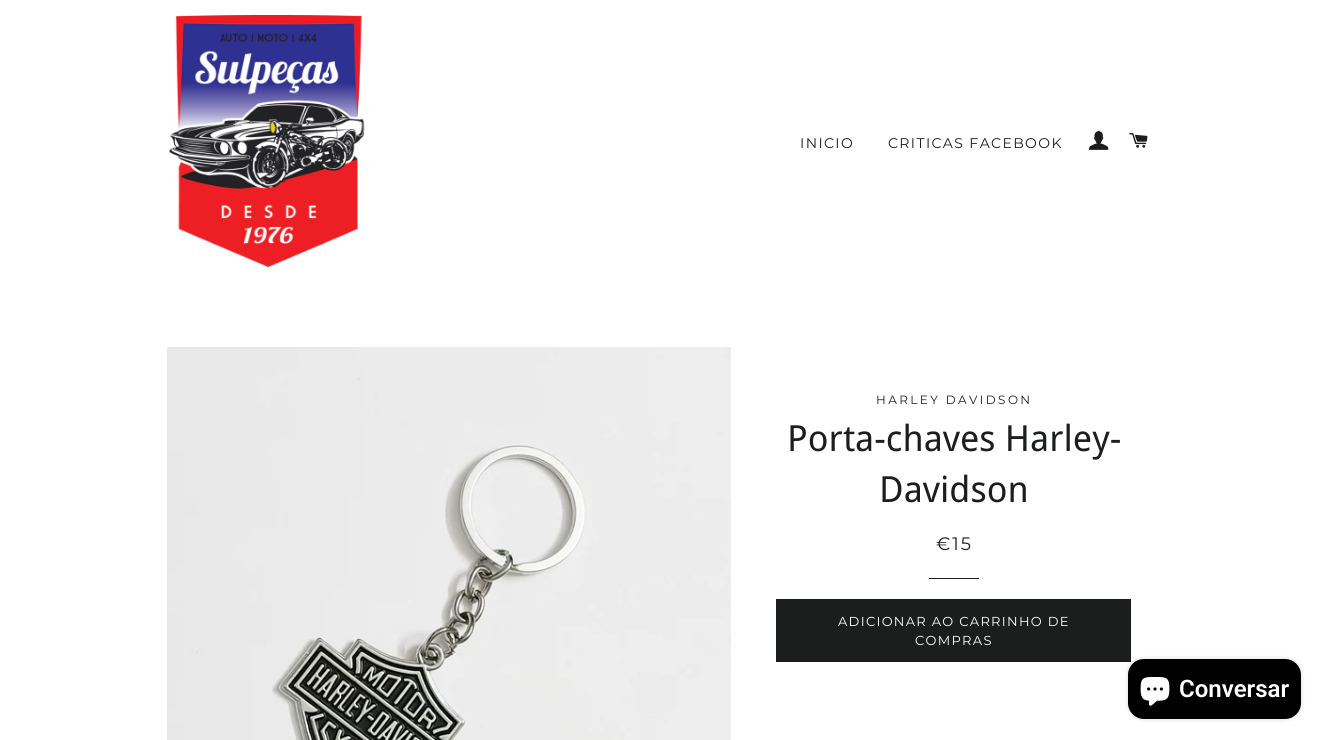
import math
import cairocffi as cairo

surface = cairo.ImageSurface(cairo.FORMAT_RGB24, 1323, 740)
cr = cairo.Context(surface)
options = cairo.FontOptions()
options.set_hint_metrics(cairo.HINT_METRICS_OFF)
options.set_hint_style(cairo.HINT_STYLE_NONE)
cr.set_font_options(options)
cr.set_miter_limit(4)


def use_color(code):
    cr.set_source_rgb(*(v / 255 for v in bytes.fromhex(code[-6:])))


def spaced_text(x, y, s, letter, word):
    cr.move_to(x, y)
    for ch in s:
        cr.show_text(ch)
        cr.rel_move_to(letter + word * (ch == ' '), 0)


def round_rect(x, y, w, h, r):
    cr.new_sub_path()
    for i, (u, v) in enumerate([(x + w - r, y + h - r), (x + r, y + h - r), (x + r, y + r), (x + w - r, y + r)]):
        cr.arc(u, v, r, i * math.pi / 2, (i + 1) * math.pi / 2)
    cr.close_path()


def shadow(x, y, w, h, r, blur, alpha):
    cr.push_group_with_content(cairo.CONTENT_ALPHA)
    cr.set_operator(cairo.OPERATOR_SOURCE)
    for i in range(15, -16, -2):
        e = blur * i / 6
        if min(w, h) + 2 * e > 0:
            cr.set_source_rgba(0, 0, 0, alpha * math.erfc((i - 1) / 8.5) / 2)
            round_rect(x - e, y - e, w + 2 * e, h + 2 * e, max(0, min(r + e + blur * .6, min(w, h) / 2 + e)))
            cr.fill()
    cr.mask(cr.pop_group())


def picture(path, x, y, w, h):
    cr.save()
    cr.set_source_surface(cairo.ImageSurface.create_from_png(path), x, y)
    cr.rectangle(x, y, w, h)
    cr.fill()
    cr.restore()


use_color("#ffffff")
cr.paint()
picture("img1.png", 168, 15, 197, 252)
cr.select_font_face("Montserrat Thin")
cr.set_font_size(14)
use_color("#1c1d1d")
spaced_text(800, 148, "INICIO", 1.4, 0)
spaced_text(888, 148, "CRITICAS FACEBOOK", 1.4, 0)
picture("img2.png", 1089, 130, 20, 20)
picture("img3.png", 1129, 133, 19, 15)
picture("img4.png", 167, 347, 564, 393)
cr.set_font_size(12)
spaced_text(876, 404, "HARLEY DAVIDSON", 2.4, 0)
cr.select_font_face("Droid Sans")
cr.set_font_size(36)
cr.move_to(787, 451)
cr.show_text("Porta-chaves Harley-")
cr.move_to(879, 502)
cr.show_text("Davidson")
cr.select_font_face("Montserrat Thin")
cr.set_font_size(18)
spaced_text(936, 550, "€15", 2, 0)
cr.rectangle(929, 578, 50, 1)
cr.fill()
cr.rectangle(776, 599, 355, 63)
cr.fill()
cr.set_font_size(13)
use_color("#ffffff")
spaced_text(838, 626, "ADICIONAR AO CARRINHO DE", 1.3, 0)
spaced_text(915, 645, "COMPRAS", 1.3, 0)
use_color("#000000")
shadow(1128, 659, 173, 60, 16, 2.5, 0.15)
use_color("#000000")
round_rect(1128, 659, 173, 60, 16)
cr.fill()
picture("img5.png", 1140, 677, 30, 29)
cr.select_font_face("Roboto SemiBold")
cr.set_font_size(24)
use_color("#ffffff")
cr.move_to(1179, 697)
cr.show_text("Conversar")
surface.write_to_png("result.png")
